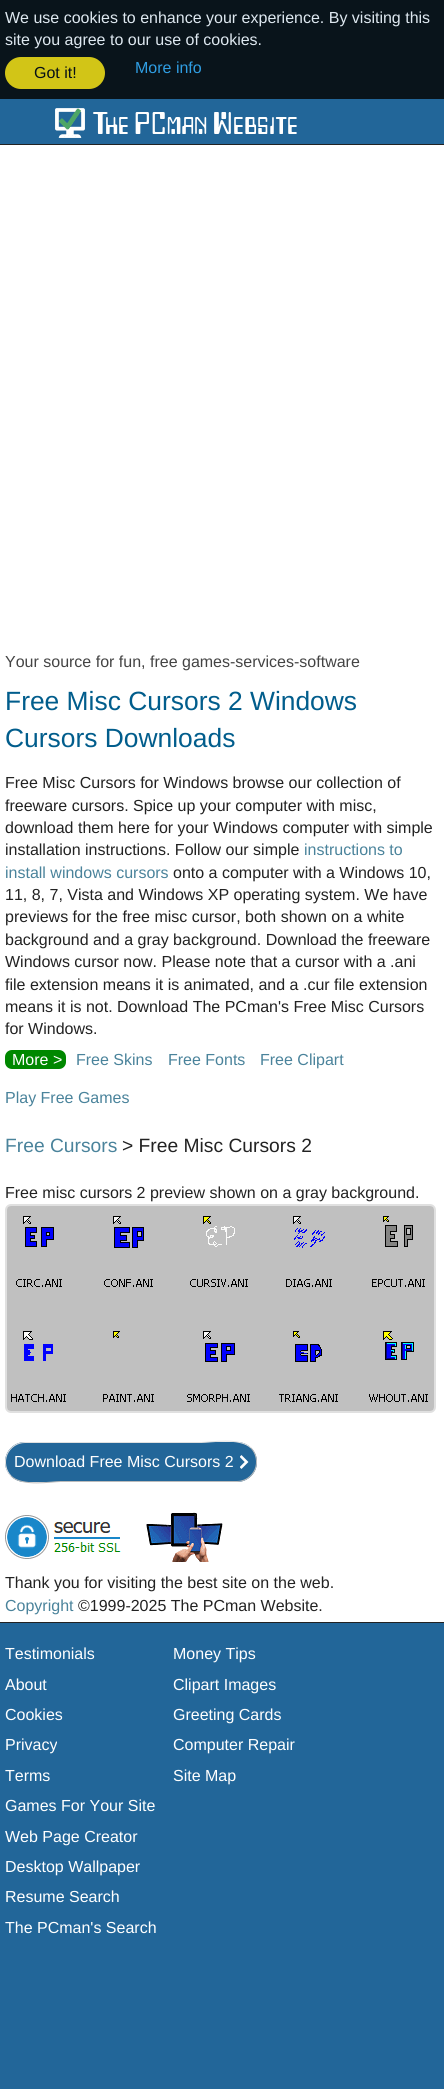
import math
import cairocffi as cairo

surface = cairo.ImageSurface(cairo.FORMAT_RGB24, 444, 2089)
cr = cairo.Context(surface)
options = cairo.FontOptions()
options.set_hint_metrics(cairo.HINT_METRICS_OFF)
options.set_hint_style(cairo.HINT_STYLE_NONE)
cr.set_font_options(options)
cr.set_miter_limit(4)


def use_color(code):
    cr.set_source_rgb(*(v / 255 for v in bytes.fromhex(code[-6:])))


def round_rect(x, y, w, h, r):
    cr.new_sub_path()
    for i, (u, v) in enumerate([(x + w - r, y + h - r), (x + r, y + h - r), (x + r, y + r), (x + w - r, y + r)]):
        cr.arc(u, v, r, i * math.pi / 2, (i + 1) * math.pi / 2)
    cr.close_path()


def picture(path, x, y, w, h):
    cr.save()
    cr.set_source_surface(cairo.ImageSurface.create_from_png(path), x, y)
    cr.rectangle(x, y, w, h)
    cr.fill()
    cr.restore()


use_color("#226699")
cr.paint()
use_color("#09141b")
cr.rectangle(0, 0, 444, 99)
cr.fill()
cr.select_font_face("Liberation Sans")
cr.set_font_size(16)
use_color("#dee8f0")
cr.move_to(5, 23)
cr.show_text("We use cookies to enhance your experience. By visiting this")
cr.move_to(5, 45)
cr.show_text("site you agree to our use of cookies.")
use_color("#d2c517")
round_rect(5, 57, 100, 32, 16)
cr.fill()
use_color("#050f17")
cr.move_to(34, 78)
cr.show_text("Got it!")
use_color("#2f9ee3")
cr.move_to(135, 73)
cr.show_text("More info")
use_color("#222222")
cr.rectangle(0, 144, 444, 1)
cr.fill()
picture("img1.png", 55, 108, 242, 30)
use_color("#ffffff")
cr.rectangle(0, 145, 444, 1477)
cr.fill()
use_color("#444444")
cr.move_to(5, 667)
cr.show_text("Your source for fun, free games-services-software")
cr.set_font_size(26.4)
use_color("#015d8c")
cr.move_to(5, 710)
cr.show_text("Free Misc Cursors 2 Windows")
cr.move_to(5, 747)
cr.show_text("Cursors Downloads")
cr.set_font_size(16)
use_color("#222222")
cr.move_to(5, 788)
cr.show_text("Free Misc Cursors for Windows browse our collection of")
cr.move_to(5, 811)
cr.show_text("freeware cursors. Spice up your computer with misc,")
cr.move_to(5, 833)
cr.show_text("download them here for your Windows computer with simple")
cr.move_to(5, 855)
cr.show_text("installation instructions. Follow our simple")
use_color("#4a839b")
cr.move_to(304, 855)
cr.show_text("instructions to")
cr.move_to(5, 878)
cr.show_text("install windows cursors")
use_color("#222222")
cr.move_to(173, 878)
cr.show_text("onto a computer with a Windows 10,")
cr.move_to(5, 900)
cr.show_text("11, 8, 7, Vista and Windows XP operating system. We have")
cr.move_to(5, 922)
cr.show_text("previews for the free misc cursor, both shown on a white")
cr.move_to(5, 945)
cr.show_text("background and a gray background. Download the freeware")
cr.move_to(5, 967)
cr.show_text("Windows cursor now. Please note that a cursor with a .ani")
cr.move_to(5, 990)
cr.show_text("file extension means it is animated, and a .cur file extension")
cr.move_to(5, 1012)
cr.show_text("means it is not. Download The PCman's Free Misc Cursors")
cr.move_to(5, 1034)
cr.show_text("for Windows.")
use_color("#008800")
round_rect(5, 1050, 61, 19, 7)
cr.fill()
use_color("#ffffff")
cr.move_to(12, 1065)
cr.show_text("More >")
use_color("#4a839b")
cr.move_to(76, 1065)
cr.show_text("Free Skins")
cr.move_to(168, 1065)
cr.show_text("Free Fonts")
cr.move_to(260, 1065)
cr.show_text("Free Clipart")
cr.move_to(5, 1103)
cr.show_text("Play Free Games")
cr.set_font_size(19.25)
cr.move_to(5, 1152)
cr.show_text("Free Cursors")
use_color("#222222")
cr.move_to(122, 1152)
cr.show_text("> Free Misc Cursors 2")
cr.set_font_size(16)
cr.move_to(5, 1198)
cr.show_text("Free misc cursors 2 preview shown on a gray background.")
round_rect(6, 1205, 429, 207, 5)
use_color("#e0e0e0")
cr.stroke()
picture("img2.png", 7, 1206, 427, 205)
use_color("#226699")
round_rect(5, 1442, 252, 40, 20)
cr.fill()
picture("img3.png", 240, 1455, 9, 14)
cr.new_path()
cr.move_to(251, 1448)
cr.curve_to(256.5, 1453.5, 258, 1462.5, 255, 1469.5)
cr.curve_to(252, 1476.5, 245, 1481.5, 237, 1481.5)
cr.line_to(60.5, 1481.5)
cr.curve_to(52, 1481.5, 22, 1487, 11, 1476)
use_color("#bbbbbb")
cr.set_line_width(1)
cr.stroke()
cr.new_path()
cr.move_to(11, 1476)
cr.curve_to(5.5, 1470.5, 4, 1461.5, 7, 1454.5)
cr.curve_to(10, 1447.5, 17, 1442.5, 25, 1442.5)
cr.line_to(201.5, 1442.5)
cr.curve_to(210, 1442.5, 240, 1437, 251, 1448)
use_color("#e0e0e0")
cr.stroke()
use_color("#ffffff")
cr.move_to(14, 1467)
cr.show_text("Download Free Misc Cursors 2")
picture("img4.png", 5, 1515, 116, 44)
picture("img5.png", 146, 1512, 77, 50)
use_color("#222222")
cr.move_to(5, 1588)
cr.show_text("Thank you for visiting the best site on the web.")
use_color("#4a839b")
cr.move_to(5, 1611)
cr.show_text("Copyright")
use_color("#222222")
cr.move_to(78, 1611)
cr.show_text("©1999-2025 The PCman Website.")
cr.rectangle(0, 1622, 444, 1)
cr.fill()
use_color("#ffffff")
cr.move_to(5, 1659)
cr.show_text("Testimonials")
cr.move_to(5, 1690)
cr.show_text("About")
cr.move_to(5, 1720)
cr.show_text("Cookies")
cr.move_to(5, 1750)
cr.show_text("Privacy")
cr.move_to(5, 1781)
cr.show_text("Terms")
cr.move_to(173, 1659)
cr.show_text("Money Tips")
cr.move_to(173, 1690)
cr.show_text("Clipart Images")
cr.move_to(173, 1720)
cr.show_text("Greeting Cards")
cr.move_to(173, 1750)
cr.show_text("Computer Repair")
cr.move_to(173, 1781)
cr.show_text("Site Map")
cr.move_to(5, 1811)
cr.show_text("Games For Your Site")
cr.move_to(5, 1842)
cr.show_text("Web Page Creator")
cr.move_to(5, 1872)
cr.show_text("Desktop Wallpaper")
cr.move_to(5, 1902)
cr.show_text("Resume Search")
cr.move_to(5, 1933)
cr.show_text("The PCman's Search")
surface.write_to_png("result.png")
